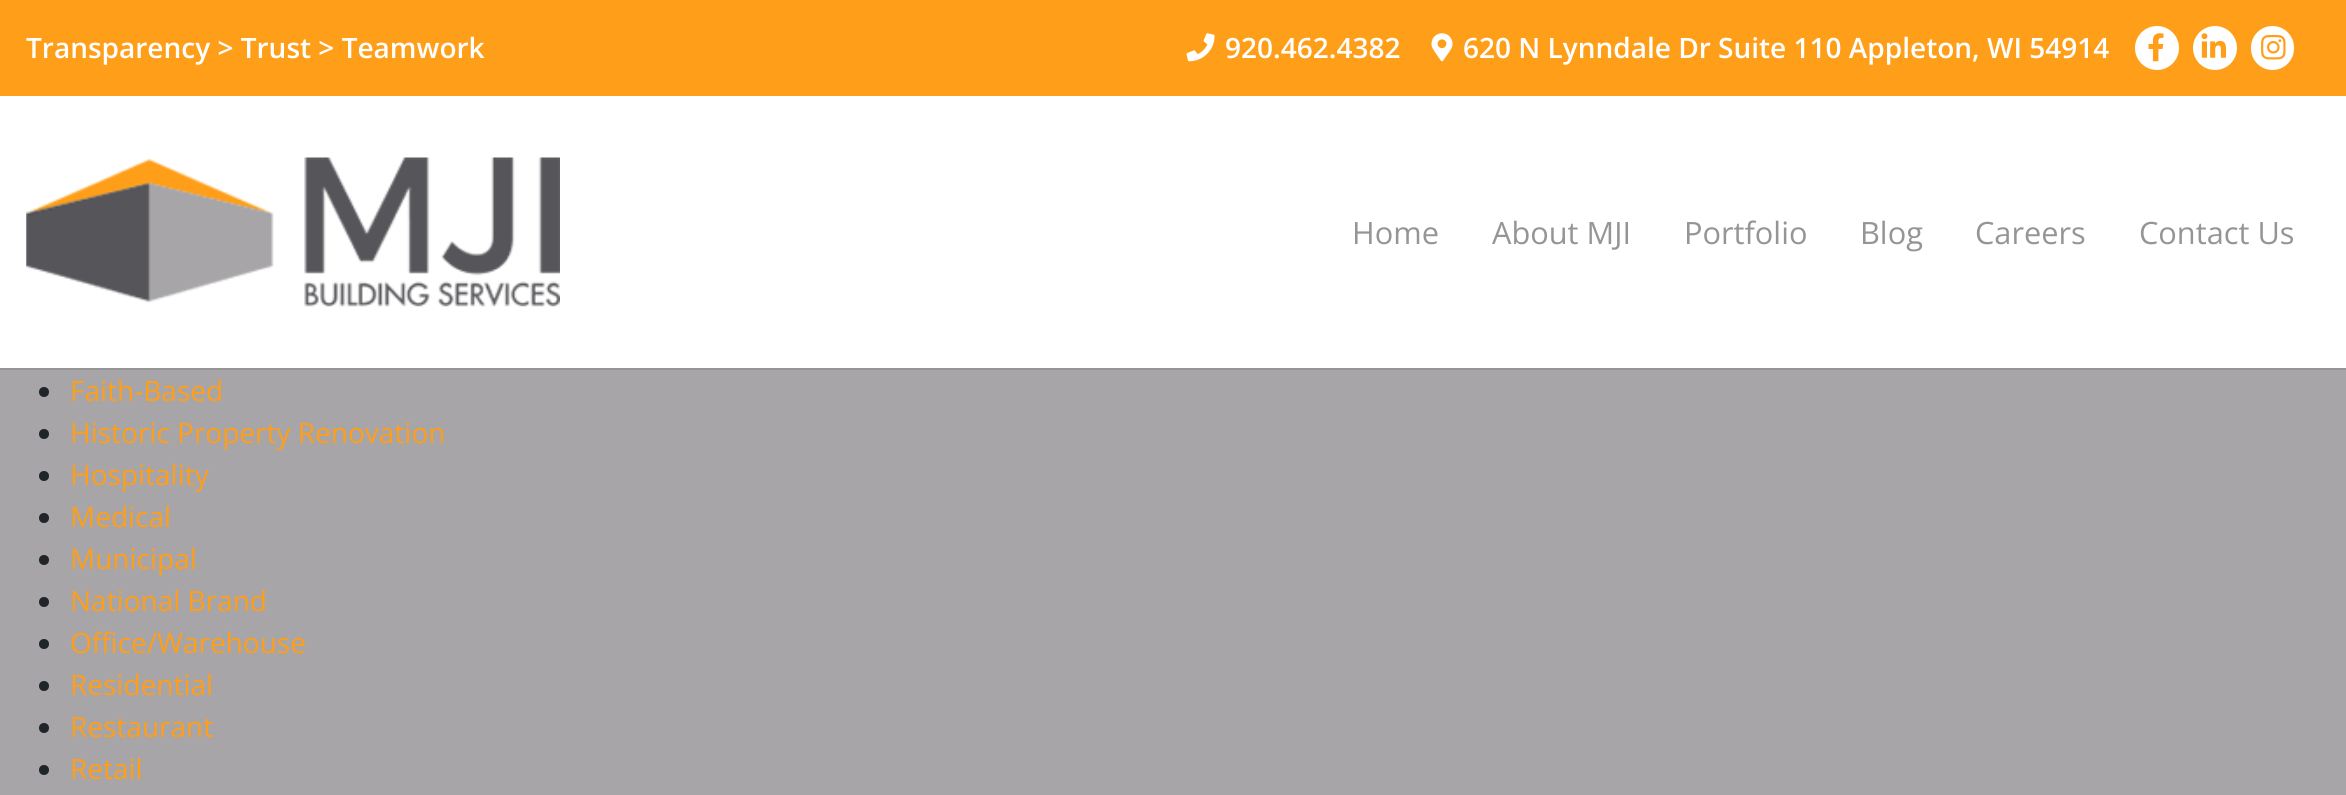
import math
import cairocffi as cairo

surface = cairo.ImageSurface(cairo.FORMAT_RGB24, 2346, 795)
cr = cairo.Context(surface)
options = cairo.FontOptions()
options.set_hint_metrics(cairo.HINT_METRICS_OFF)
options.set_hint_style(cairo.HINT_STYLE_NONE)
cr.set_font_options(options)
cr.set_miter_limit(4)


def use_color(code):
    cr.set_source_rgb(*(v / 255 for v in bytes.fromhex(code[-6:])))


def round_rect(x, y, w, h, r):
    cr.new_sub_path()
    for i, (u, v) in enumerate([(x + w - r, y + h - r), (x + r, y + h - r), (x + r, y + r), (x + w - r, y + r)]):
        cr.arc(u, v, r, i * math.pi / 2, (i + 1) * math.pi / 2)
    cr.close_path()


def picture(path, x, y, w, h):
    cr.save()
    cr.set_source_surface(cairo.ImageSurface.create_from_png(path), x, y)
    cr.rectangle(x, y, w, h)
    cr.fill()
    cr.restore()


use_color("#a7a5a8")
cr.paint()
use_color("#ff9e19")
cr.rectangle(0, 0, 2346, 96)
cr.fill()
cr.select_font_face("Open Sans SemiBold")
cr.set_font_size(28)
use_color("#ffffff")
cr.move_to(26, 58)
cr.show_text("Transparency > Trust > Teamwork")
picture("img1.png", 1186, 33, 29, 29)
cr.move_to(1225, 58)
cr.show_text("920.462.4382")
picture("img2.png", 1431, 33, 22, 29)
cr.move_to(1463, 58)
cr.show_text("620 N Lynndale Dr Suite 110 Appleton, WI 54914")
cr.new_path()
cr.arc(2157, 48, 22, 0, 2 * math.pi)
cr.fill()
picture("img3.png", 2148, 33, 16, 29)
cr.arc(2215, 48, 22, 0, 2 * math.pi)
cr.fill()
picture("img4.png", 2201, 33, 25, 25)
round_rect(2251, 26, 43, 44, 21.5)
cr.fill()
picture("img5.png", 2261, 35, 25, 25)
cr.rectangle(0, 96, 2346, 272)
cr.fill()
use_color("#959595")
cr.rectangle(0, 368, 2346, 2)
cr.fill()
picture("img6.png", 26, 157, 534, 150)
cr.select_font_face("Open Sans")
cr.set_font_size(30.75)
cr.move_to(1352, 244)
cr.show_text("Home")
cr.move_to(1492, 244)
cr.show_text("About MJI")
cr.move_to(1684, 244)
cr.show_text("Portfolio")
cr.move_to(1860, 244)
cr.show_text("Blog")
cr.move_to(1975, 244)
cr.show_text("Careers")
cr.move_to(2139, 244)
cr.show_text("Contact Us")
use_color("#212529")
cr.new_path()
cr.arc(44, 392, 5, 0, 2 * math.pi)
cr.fill()
cr.set_font_size(28)
use_color("#ff9e19")
cr.move_to(70, 401)
cr.show_text("Faith-Based")
use_color("#212529")
cr.new_path()
cr.arc(44, 434, 5, 0, 2 * math.pi)
cr.fill()
use_color("#ff9e19")
cr.move_to(70, 443)
cr.show_text("Historic Property Renovation")
use_color("#212529")
cr.new_path()
cr.arc(44, 476, 5, 0, 2 * math.pi)
cr.fill()
use_color("#ff9e19")
cr.move_to(70, 485)
cr.show_text("Hospitality")
use_color("#212529")
cr.new_path()
cr.arc(44, 518, 5, 0, 2 * math.pi)
cr.fill()
use_color("#ff9e19")
cr.move_to(70, 527)
cr.show_text("Medical")
use_color("#212529")
cr.new_path()
cr.arc(44, 560, 5, 0, 2 * math.pi)
cr.fill()
use_color("#ff9e19")
cr.move_to(70, 569)
cr.show_text("Municipal")
use_color("#212529")
cr.new_path()
cr.arc(44, 602, 5, 0, 2 * math.pi)
cr.fill()
use_color("#ff9e19")
cr.move_to(70, 611)
cr.show_text("National Brand")
use_color("#212529")
cr.new_path()
cr.arc(44, 644, 5, 0, 2 * math.pi)
cr.fill()
use_color("#ff9e19")
cr.move_to(70, 653)
cr.show_text("Office/Warehouse")
use_color("#212529")
cr.new_path()
cr.arc(44, 686, 5, 0, 2 * math.pi)
cr.fill()
use_color("#ff9e19")
cr.move_to(70, 695)
cr.show_text("Residential")
use_color("#212529")
cr.new_path()
cr.arc(44, 728, 5, 0, 2 * math.pi)
cr.fill()
use_color("#ff9e19")
cr.move_to(70, 737)
cr.show_text("Restaurant")
use_color("#212529")
cr.new_path()
cr.arc(44, 770, 5, 0, 2 * math.pi)
cr.fill()
use_color("#ff9e19")
cr.move_to(70, 779)
cr.show_text("Retail")
surface.write_to_png("result.png")
